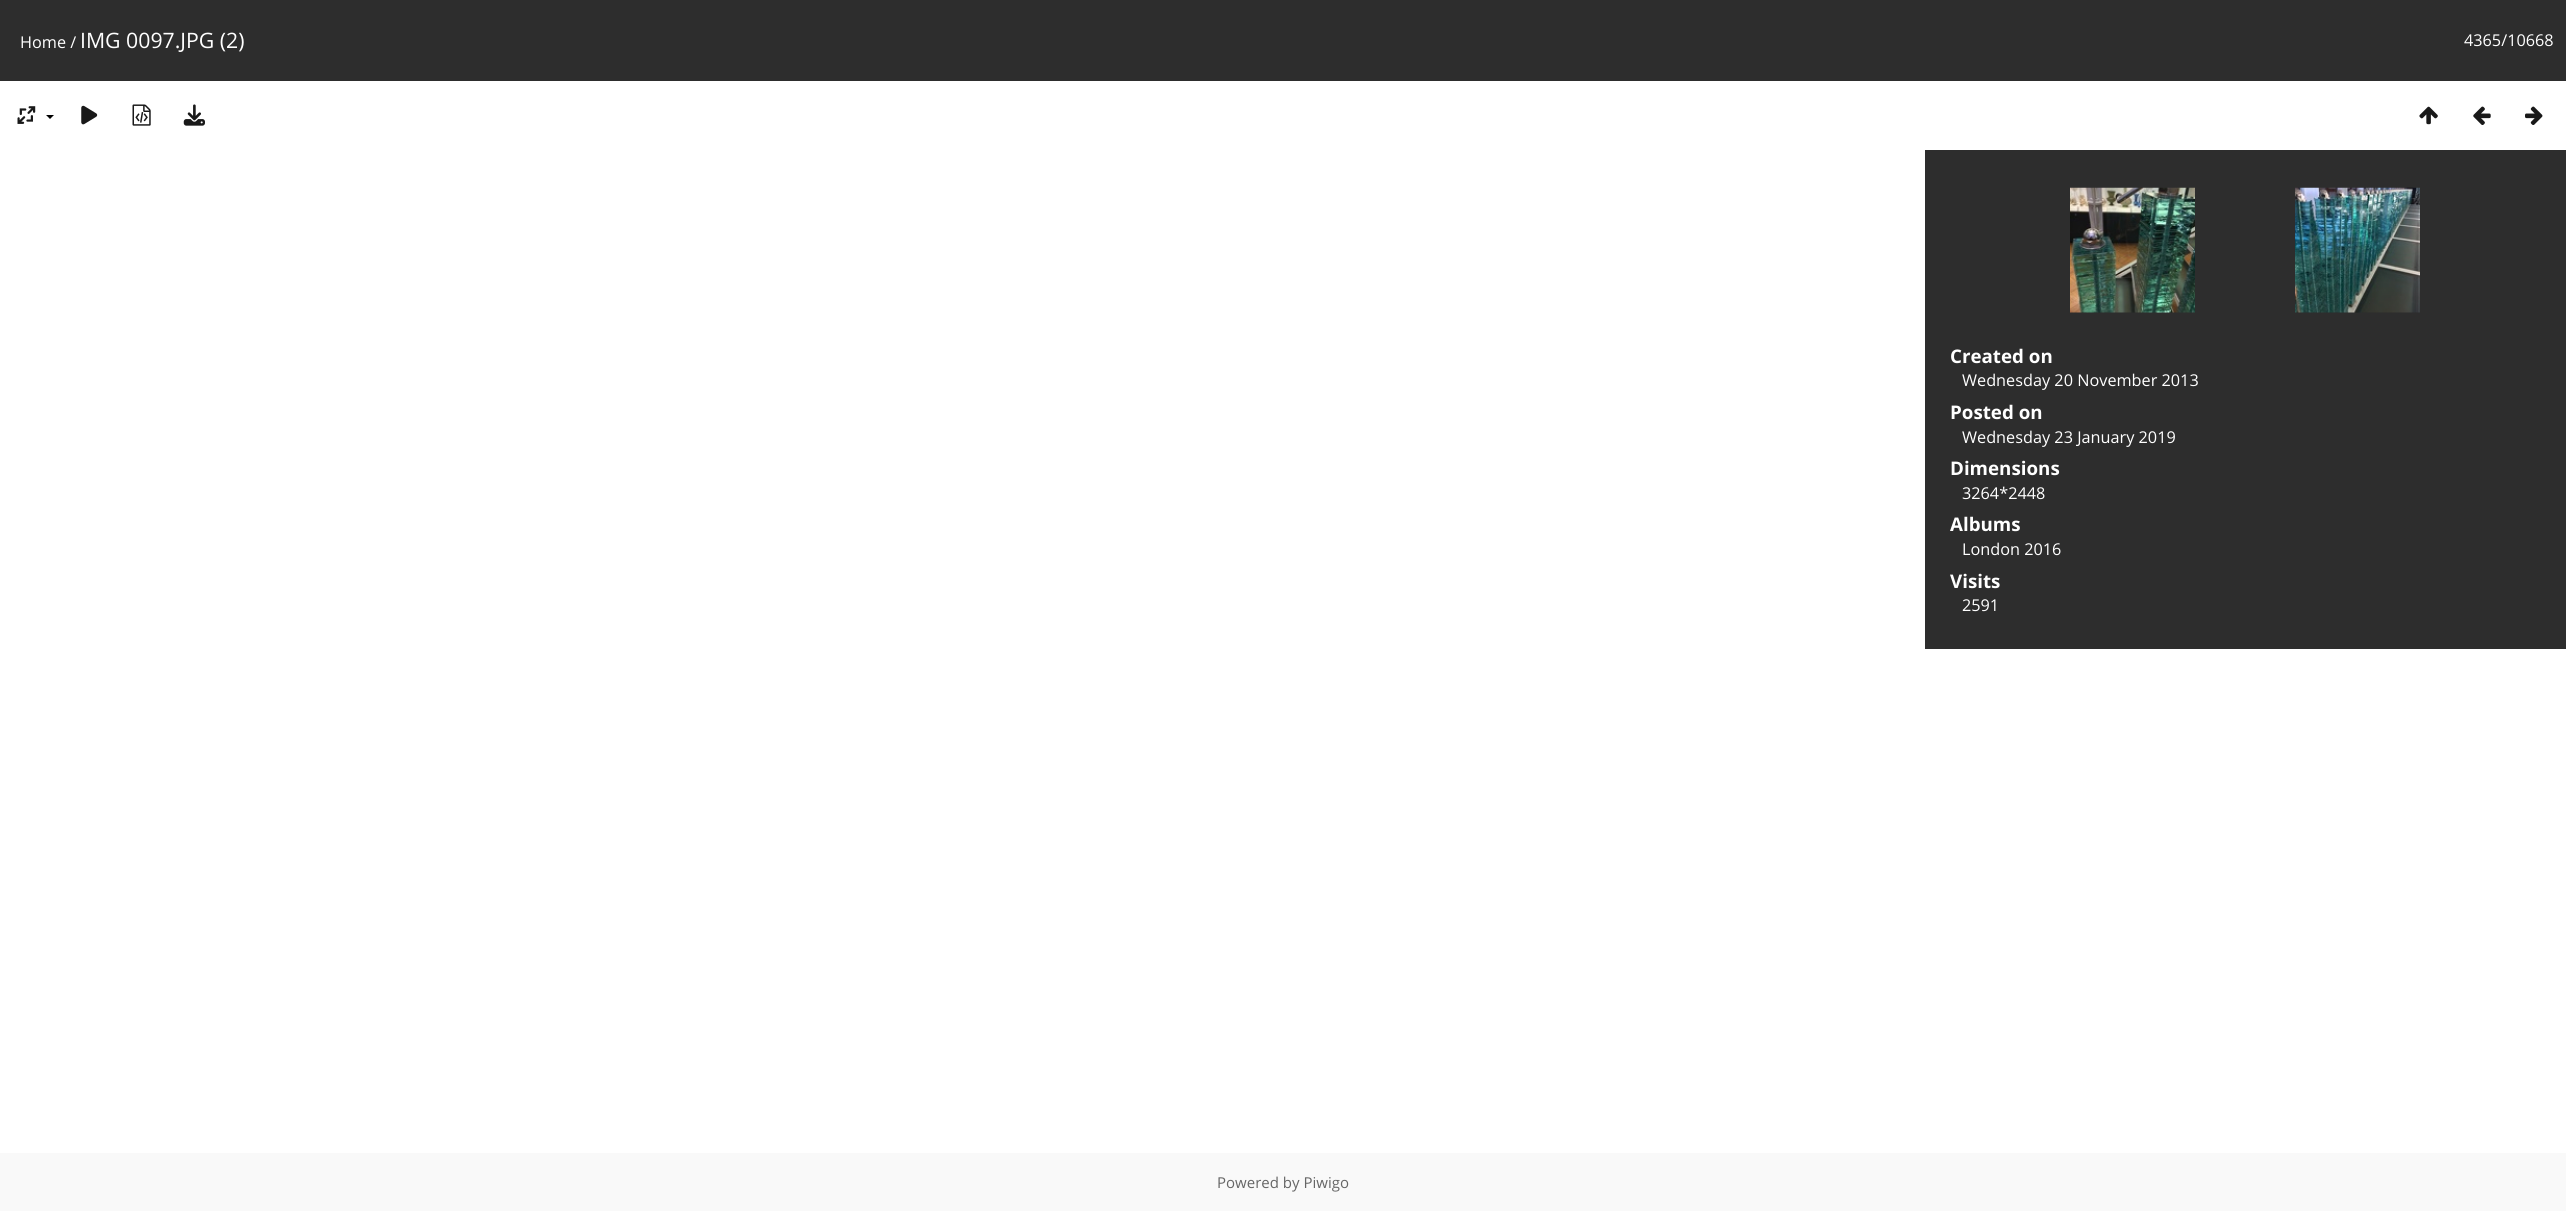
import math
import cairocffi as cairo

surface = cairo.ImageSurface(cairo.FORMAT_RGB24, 2566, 1211)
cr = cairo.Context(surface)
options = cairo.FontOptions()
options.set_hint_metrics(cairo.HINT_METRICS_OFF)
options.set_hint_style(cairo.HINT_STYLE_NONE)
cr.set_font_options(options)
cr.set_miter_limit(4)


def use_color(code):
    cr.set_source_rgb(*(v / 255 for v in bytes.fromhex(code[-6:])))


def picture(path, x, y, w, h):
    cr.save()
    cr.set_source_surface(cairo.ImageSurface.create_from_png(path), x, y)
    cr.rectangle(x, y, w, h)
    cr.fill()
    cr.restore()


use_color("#ffffff")
cr.paint()
use_color("#2d2d2d")
cr.rectangle(0, 0, 2566, 81)
cr.fill()
cr.select_font_face("Open Sans")
cr.set_font_size(16.25)
use_color("#ffffff")
cr.move_to(20, 48)
cr.show_text("Home /")
cr.set_font_size(21.25)
cr.move_to(80, 48)
cr.show_text("IMG 0097.JPG (2)")
cr.set_font_size(16.25)
cr.move_to(2464, 46)
cr.show_text("4365/10668")
picture("img1.png", 17, 106, 19, 18)
use_color("#000000")
cr.new_path()
cr.move_to(46, 115)
cr.line_to(54, 115)
cr.line_to(50, 119)
cr.close_path()
cr.fill()
picture("img2.png", 81, 105, 17, 20)
picture("img3.png", 132, 104, 19, 22)
picture("img4.png", 183, 104, 22, 22)
picture("img5.png", 2419, 106, 19, 19)
picture("img6.png", 2473, 106, 18, 19)
picture("img7.png", 2525, 106, 18, 19)
use_color("#2d2d2d")
cr.rectangle(1925, 150, 641, 499)
cr.fill()
picture("img8.png", 2070, 187, 125, 126)
picture("img9.png", 2295, 187, 125, 126)
cr.select_font_face("Open Sans", cairo.FONT_SLANT_NORMAL, cairo.FONT_WEIGHT_BOLD)
cr.set_font_size(18.75)
use_color("#ffffff")
cr.move_to(1950, 363)
cr.show_text("Created on")
cr.select_font_face("Open Sans")
cr.set_font_size(16.25)
cr.move_to(1962, 386)
cr.show_text("Wednesday 20 November 2013")
cr.select_font_face("Open Sans", cairo.FONT_SLANT_NORMAL, cairo.FONT_WEIGHT_BOLD)
cr.set_font_size(18.75)
cr.move_to(1950, 419)
cr.show_text("Posted on")
cr.select_font_face("Open Sans")
cr.set_font_size(16.25)
cr.move_to(1962, 443)
cr.show_text("Wednesday 23 January 2019")
cr.select_font_face("Open Sans", cairo.FONT_SLANT_NORMAL, cairo.FONT_WEIGHT_BOLD)
cr.set_font_size(18.75)
cr.move_to(1950, 475)
cr.show_text("Dimensions")
cr.select_font_face("Open Sans")
cr.set_font_size(16.25)
cr.move_to(1962, 499)
cr.show_text("3264*2448")
cr.select_font_face("Open Sans", cairo.FONT_SLANT_NORMAL, cairo.FONT_WEIGHT_BOLD)
cr.set_font_size(18.75)
cr.move_to(1950, 531)
cr.show_text("Albums")
cr.select_font_face("Open Sans")
cr.set_font_size(16.25)
cr.move_to(1962, 555)
cr.show_text("London 2016")
cr.select_font_face("Open Sans", cairo.FONT_SLANT_NORMAL, cairo.FONT_WEIGHT_BOLD)
cr.set_font_size(18.75)
cr.move_to(1950, 588)
cr.show_text("Visits")
cr.select_font_face("Open Sans")
cr.set_font_size(16.25)
cr.move_to(1962, 611)
cr.show_text("2591")
use_color("#f9f9f9")
cr.rectangle(0, 1153, 2566, 58)
cr.fill()
cr.set_font_size(15)
use_color("#666666")
cr.move_to(1217, 1188)
cr.show_text("Powered by Piwigo")
surface.write_to_png("result.png")
